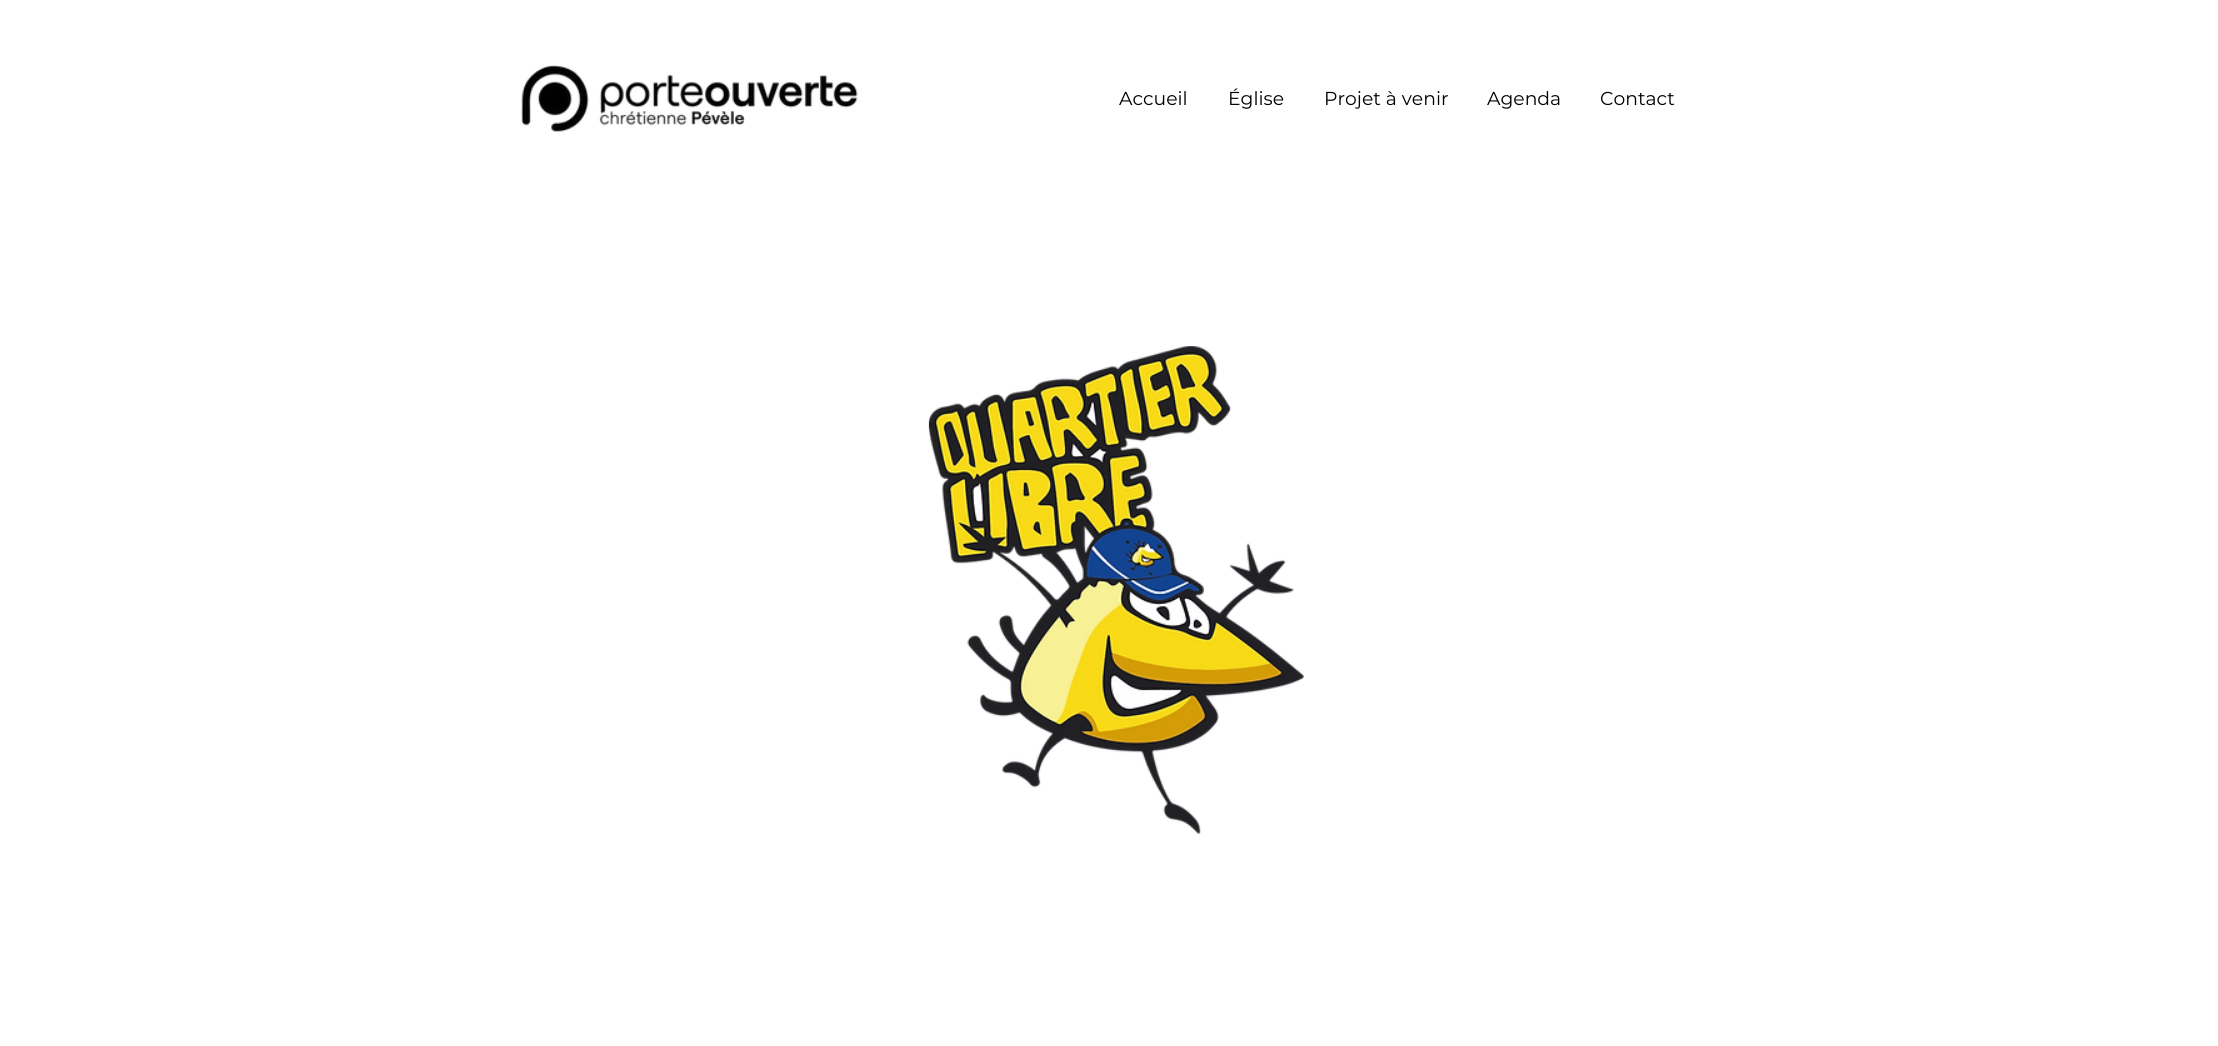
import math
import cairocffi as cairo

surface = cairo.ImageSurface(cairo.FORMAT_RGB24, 2218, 1046)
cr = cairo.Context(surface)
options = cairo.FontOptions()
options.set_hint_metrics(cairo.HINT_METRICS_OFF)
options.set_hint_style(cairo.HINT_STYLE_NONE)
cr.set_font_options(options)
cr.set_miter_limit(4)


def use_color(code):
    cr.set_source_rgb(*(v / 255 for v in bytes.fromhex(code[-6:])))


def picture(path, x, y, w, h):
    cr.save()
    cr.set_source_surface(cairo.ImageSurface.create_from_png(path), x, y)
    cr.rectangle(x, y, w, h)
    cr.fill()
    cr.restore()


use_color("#ffffff")
cr.paint()
picture("img1.png", 521, 65, 337, 67)
cr.select_font_face("Montserrat")
cr.set_font_size(18.75)
use_color("#000000")
cr.move_to(1119, 105)
cr.show_text("Accueil")
cr.move_to(1228, 105)
cr.show_text("Église")
cr.move_to(1324, 105)
cr.show_text("Projet à venir")
cr.move_to(1487, 105)
cr.show_text("Agenda")
cr.move_to(1600, 105)
cr.show_text("Contact")
picture("img2.png", 928, 346, 376, 488)
surface.write_to_png("result.png")
